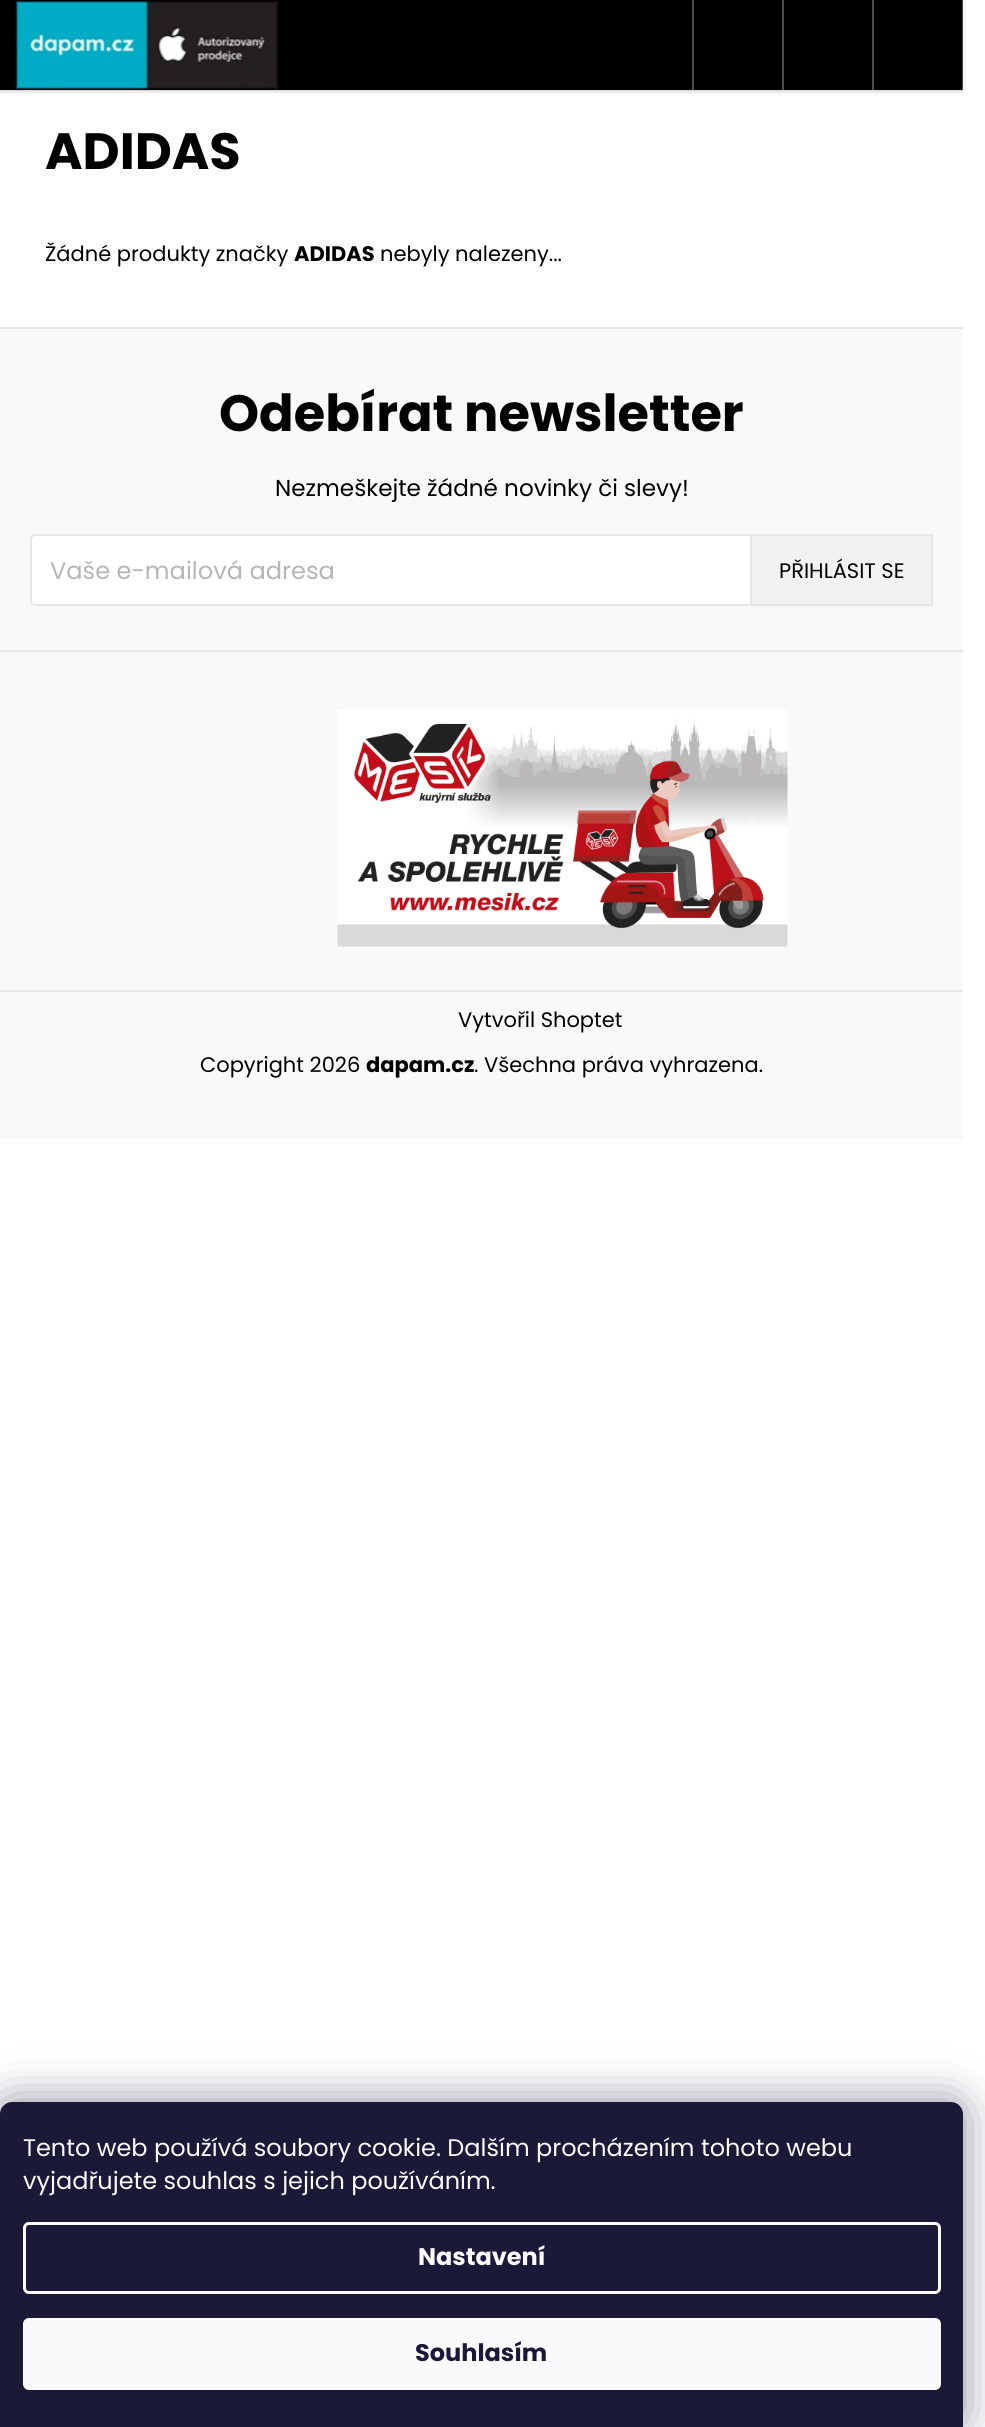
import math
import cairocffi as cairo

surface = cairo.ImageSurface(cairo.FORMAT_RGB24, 985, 2427)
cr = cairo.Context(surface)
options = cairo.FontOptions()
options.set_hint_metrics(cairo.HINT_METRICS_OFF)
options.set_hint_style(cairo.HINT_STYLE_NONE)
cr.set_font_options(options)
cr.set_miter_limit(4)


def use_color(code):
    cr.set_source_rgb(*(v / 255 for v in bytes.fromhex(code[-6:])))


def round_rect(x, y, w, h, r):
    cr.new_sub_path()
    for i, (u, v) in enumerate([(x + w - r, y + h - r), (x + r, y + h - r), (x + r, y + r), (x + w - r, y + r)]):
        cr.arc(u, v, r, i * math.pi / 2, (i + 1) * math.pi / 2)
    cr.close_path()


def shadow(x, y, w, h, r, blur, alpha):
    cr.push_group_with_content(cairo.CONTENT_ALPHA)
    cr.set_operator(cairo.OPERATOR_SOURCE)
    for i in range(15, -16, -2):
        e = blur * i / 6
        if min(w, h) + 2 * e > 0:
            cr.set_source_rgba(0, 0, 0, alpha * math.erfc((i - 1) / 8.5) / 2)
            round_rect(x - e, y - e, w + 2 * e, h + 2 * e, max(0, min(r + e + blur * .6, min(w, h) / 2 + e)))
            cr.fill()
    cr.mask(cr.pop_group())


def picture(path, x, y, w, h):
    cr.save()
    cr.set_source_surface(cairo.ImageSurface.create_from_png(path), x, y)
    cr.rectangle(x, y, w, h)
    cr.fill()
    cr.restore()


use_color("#ffffff")
cr.paint()
use_color("#000000")
shadow(0, 2, 963, 90, 0, 1.5, 0.16)
use_color("#000000")
cr.rectangle(0, 0, 963, 90)
cr.fill()
picture("img1.png", 15, 1, 264, 88)
cr.set_source_rgba(1, 1, 1, 0.3)
cr.rectangle(962, 0, 2, 90)
cr.fill()
use_color("#4d4d4d")
cr.rectangle(692, 0, 2, 90)
cr.fill()
cr.rectangle(782, 0, 2, 90)
cr.fill()
cr.rectangle(872, 0, 2, 90)
cr.fill()
cr.select_font_face("Poppins", cairo.FONT_SLANT_NORMAL, cairo.FONT_WEIGHT_BOLD)
cr.set_font_size(51)
use_color("#000000")
cr.move_to(45, 169)
cr.show_text("ADIDAS")
cr.select_font_face("Poppins")
cr.set_font_size(21)
cr.move_to(45, 261)
cr.show_text("Žádné produkty značky")
cr.select_font_face("Poppins", cairo.FONT_SLANT_NORMAL, cairo.FONT_WEIGHT_BOLD)
cr.move_to(294, 261)
cr.show_text("ADIDAS")
cr.select_font_face("Poppins")
cr.move_to(380, 261)
cr.show_text("nebyly nalezeny...")
use_color("#f9f9f9")
cr.rectangle(0, 329, 963, 810)
cr.fill()
use_color("#e6e6e6")
cr.rectangle(0, 327, 963, 2)
cr.fill()
cr.rectangle(0, 650, 963, 2)
cr.fill()
cr.select_font_face("Poppins", cairo.FONT_SLANT_NORMAL, cairo.FONT_WEIGHT_BOLD)
cr.set_font_size(51)
use_color("#000000")
cr.move_to(219, 431)
cr.show_text("Odebírat newsletter")
cr.select_font_face("Poppins")
cr.set_font_size(23.1)
cr.move_to(275, 496)
cr.show_text("Nezmeškejte žádné novinky či slevy!")
use_color("#ffffff")
round_rect(31, 535, 901, 70, 4)
cr.fill_preserve()
use_color("#e6e6e6")
cr.stroke()
cr.set_font_size(24.1)
use_color("#b6b6b6")
cr.move_to(50, 579)
cr.show_text("Vaše e-mailová adresa")
use_color("#f2f2f2")
cr.rectangle(751, 535, 181, 70)
cr.fill_preserve()
use_color("#e6e6e6")
cr.stroke()
cr.set_font_size(21)
use_color("#000000")
cr.move_to(779, 578)
cr.show_text("PŘIHLÁSIT SE")
picture("img2.png", 337, 710, 451, 237)
use_color("#e6e6e6")
cr.rectangle(0, 990, 963, 2)
cr.fill()
use_color("#000000")
cr.move_to(458, 1027)
cr.show_text("Vytvořil Shoptet")
cr.move_to(200, 1072)
cr.show_text("Copyright 2026")
cr.select_font_face("Poppins", cairo.FONT_SLANT_NORMAL, cairo.FONT_WEIGHT_BOLD)
cr.move_to(366, 1072)
cr.show_text("dapam.cz")
cr.select_font_face("Poppins")
cr.move_to(474, 1072)
cr.show_text(". Všechna práva vyhrazena.")
use_color("#1b1939")
shadow(0, 2102, 963, 325, 12, 22.5, 0.5)
use_color("#1a1937")
cr.new_path()
cr.move_to(12, 2102)
cr.line_to(951, 2102)
cr.curve_to(957.5, 2102, 963, 2107.5, 963, 2114)
cr.line_to(963, 2427)
cr.line_to(0, 2427)
cr.line_to(0, 2114)
cr.curve_to(0, 2107.5, 5.5, 2102, 12, 2102)
cr.close_path()
cr.fill()
cr.set_font_size(24)
use_color("#f8fafb")
cr.move_to(23, 2156)
cr.show_text("Tento web používá soubory cookie. Dalším procházením tohoto webu")
cr.move_to(23, 2189)
cr.show_text("vyjadřujete souhlas s jejich používáním.")
round_rect(24.5, 2223.5, 915, 69, 4.5)
cr.set_line_width(3)
cr.stroke()
cr.select_font_face("Poppins", cairo.FONT_SLANT_NORMAL, cairo.FONT_WEIGHT_BOLD)
cr.move_to(418, 2265)
cr.show_text("Nastavení")
round_rect(23, 2318, 918, 72, 6)
cr.fill()
use_color("#1a1937")
cr.move_to(415, 2361)
cr.show_text("Souhlasím")
surface.write_to_png("result.png")
